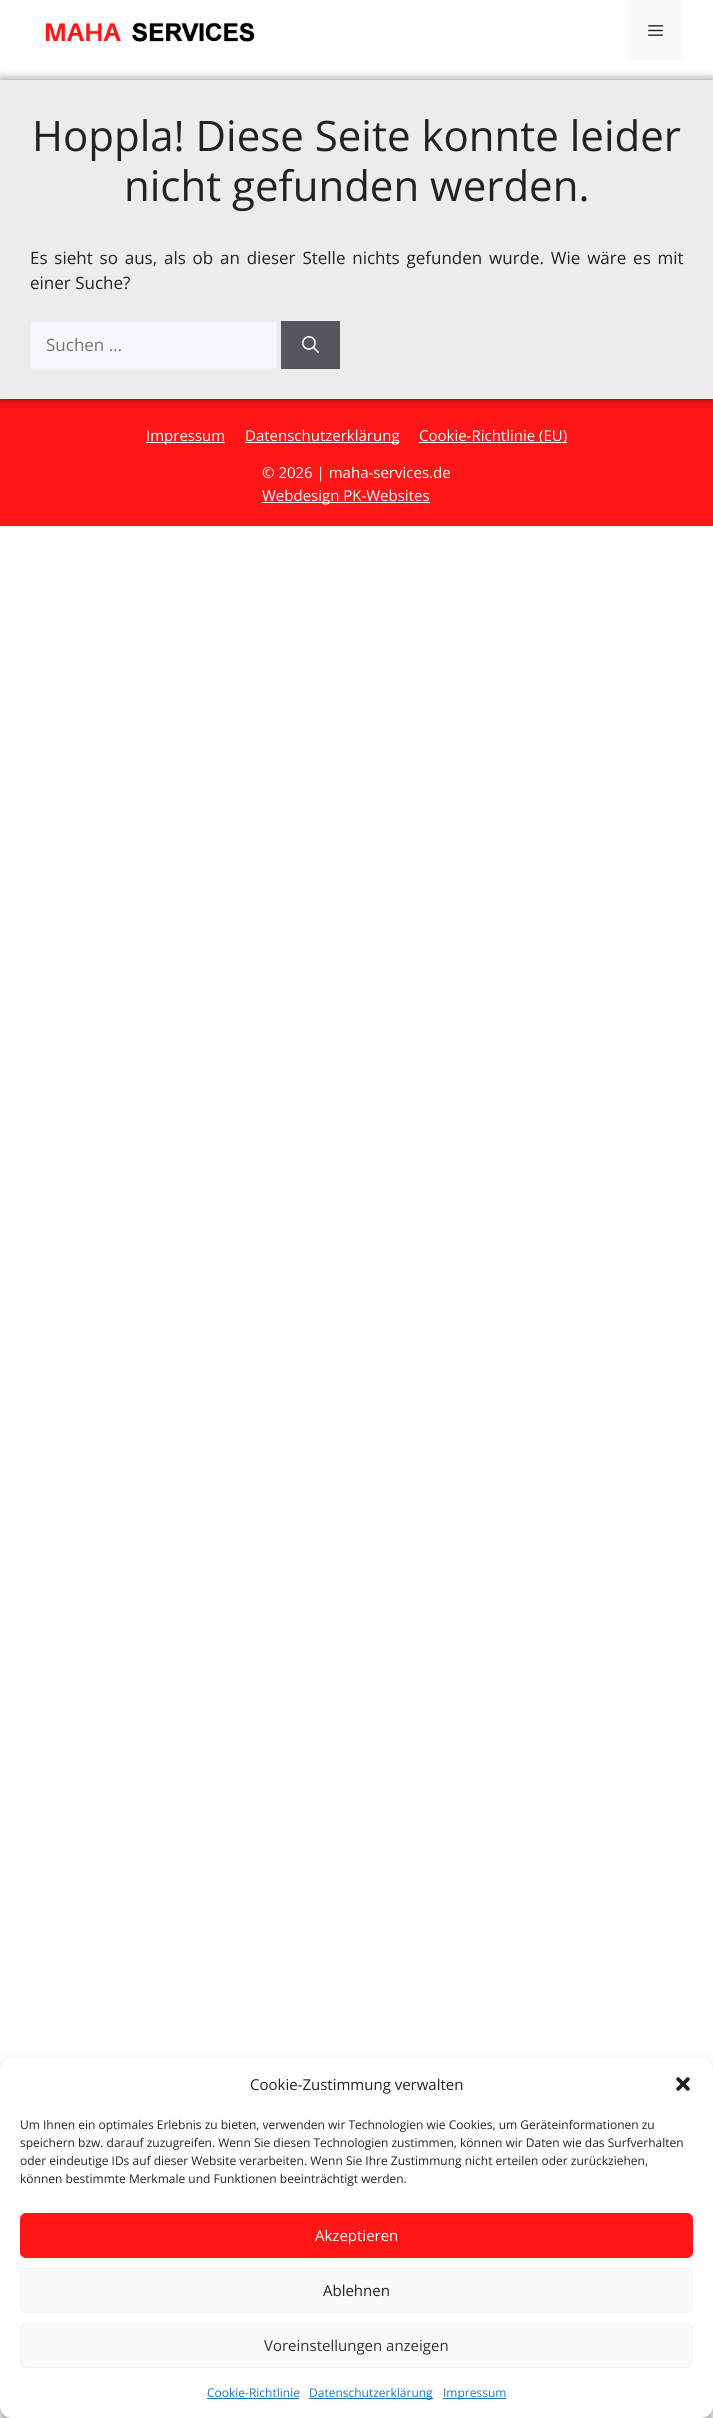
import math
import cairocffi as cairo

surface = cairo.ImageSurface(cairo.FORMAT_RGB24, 713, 2418)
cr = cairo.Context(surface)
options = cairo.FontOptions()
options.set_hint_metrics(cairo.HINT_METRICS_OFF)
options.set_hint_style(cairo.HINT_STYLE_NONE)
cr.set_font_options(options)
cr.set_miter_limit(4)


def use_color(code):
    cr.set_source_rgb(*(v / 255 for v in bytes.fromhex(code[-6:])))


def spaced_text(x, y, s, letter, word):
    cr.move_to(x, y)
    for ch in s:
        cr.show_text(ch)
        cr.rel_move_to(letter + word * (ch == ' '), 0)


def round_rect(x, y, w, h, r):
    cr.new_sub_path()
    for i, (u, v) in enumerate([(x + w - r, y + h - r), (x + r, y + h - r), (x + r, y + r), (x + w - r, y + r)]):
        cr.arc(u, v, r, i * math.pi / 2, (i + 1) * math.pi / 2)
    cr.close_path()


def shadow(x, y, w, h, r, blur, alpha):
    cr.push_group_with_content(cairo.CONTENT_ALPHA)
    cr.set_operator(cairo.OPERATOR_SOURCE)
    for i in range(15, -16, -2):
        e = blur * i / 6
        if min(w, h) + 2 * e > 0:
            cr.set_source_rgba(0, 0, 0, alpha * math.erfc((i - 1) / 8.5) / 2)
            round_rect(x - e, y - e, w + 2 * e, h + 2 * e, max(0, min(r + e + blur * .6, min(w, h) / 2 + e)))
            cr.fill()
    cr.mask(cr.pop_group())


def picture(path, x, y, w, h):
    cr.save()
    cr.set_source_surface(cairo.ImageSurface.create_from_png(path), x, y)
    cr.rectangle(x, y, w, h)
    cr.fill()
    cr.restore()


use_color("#ffffff")
cr.paint()
picture("img1.png", 45, 22, 210, 20)
use_color("#fafafa")
cr.rectangle(628, 0, 55, 60)
cr.fill()
picture("img2.png", 648, 25, 15, 11)
use_color("#ff1616")
cr.rectangle(0, 399, 713, 127)
cr.fill()
use_color("#000000")
shadow(0, 80, 713, 319, 0, 5, 0.5)
use_color("#ececec")
cr.rectangle(0, 80, 713, 319)
cr.fill()
cr.select_font_face("Open Sans")
cr.set_font_size(42)
use_color("#222222")
cr.move_to(32, 151)
cr.show_text("Hoppla! Diese Seite konnte leider")
cr.move_to(124, 201)
cr.show_text("nicht gefunden werden.")
cr.set_font_size(17)
spaced_text(30, 264, "Es sieht so aus, als ob an dieser Stelle nichts gefunden wurde. Wie wäre es mit", 0, 2.4)
cr.move_to(30, 289)
cr.show_text("einer Suche?")
use_color("#f7f8f9")
cr.rectangle(30.5, 321.5, 246, 47)
cr.fill_preserve()
use_color("#f0f0f0")
cr.set_line_width(1)
cr.stroke()
use_color("#757575")
cr.move_to(46, 351)
cr.show_text("Suchen …")
use_color("#55555e")
cr.rectangle(281, 321, 59, 48)
cr.fill()
picture("img3.png", 302, 336, 17, 17)
use_color("#ffffff")
cr.rectangle(146, 442, 79, 1)
cr.fill()
cr.set_font_size(15)
cr.move_to(146, 441)
cr.show_text("Impressum")
cr.rectangle(245, 442, 154, 1)
cr.fill()
cr.move_to(245, 441)
cr.show_text("Datenschutzerklärung")
cr.rectangle(419, 442, 148, 1)
cr.fill()
cr.move_to(419, 441)
cr.show_text("Cookie-Richtlinie (EU)")
cr.move_to(262, 478)
cr.show_text("© 2026 | maha-services.de")
cr.rectangle(262, 502, 168, 1)
cr.fill()
cr.move_to(262, 501)
cr.show_text("Webdesign PK-Websites")
use_color("#000000")
shadow(0, 2064, 713, 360, 12, 3, 0.23)
shadow(0, 2068, 713, 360, 12, 10, 0.19)
use_color("#ffffff")
round_rect(0, 2058, 713, 360, 12)
cr.fill()
use_color("#222222")
cr.move_to(250, 2090)
cr.show_text("Cookie-Zustimmung verwalten")
picture("img4.png", 676, 2077, 14, 14)
cr.set_font_size(12)
cr.move_to(20, 2129)
cr.show_text("Um Ihnen ein optimales Erlebnis zu bieten, verwenden wir Technologien wie Cookies, um Geräteinformationen zu")
cr.move_to(20, 2147)
cr.show_text("speichern bzw. darauf zuzugreifen. Wenn Sie diesen Technologien zustimmen, können wir Daten wie das Surfverhalten")
cr.move_to(20, 2165)
cr.show_text("oder eindeutige IDs auf dieser Website verarbeiten. Wenn Sie Ihre Zustimmung nicht erteilen oder zurückziehen,")
cr.move_to(20, 2183)
cr.show_text("können bestimmte Merkmale und Funktionen beeinträchtigt werden.")
use_color("#ff1616")
round_rect(20.5, 2213.5, 672, 44, 5.5)
cr.fill_preserve()
cr.stroke()
cr.set_font_size(15)
use_color("#ffffff")
cr.move_to(315, 2241)
cr.show_text("Akzeptieren")
use_color("#f9f9f9")
round_rect(20.5, 2268.5, 672, 44, 5.5)
cr.fill_preserve()
use_color("#f2f2f2")
cr.stroke()
use_color("#222222")
cr.move_to(323, 2296)
cr.show_text("Ablehnen")
use_color("#f9f9f9")
round_rect(20.5, 2323.5, 672, 44, 5.5)
cr.fill_preserve()
use_color("#f2f2f2")
cr.stroke()
use_color("#333333")
cr.move_to(264, 2351)
cr.show_text("Voreinstellungen anzeigen")
cr.set_font_size(12)
use_color("#1e73be")
cr.move_to(207, 2397)
cr.show_text("Cookie-Richtlinie")
cr.rectangle(207, 2398, 92, 1)
cr.fill()
cr.rectangle(309, 2398, 124, 1)
cr.fill()
cr.move_to(309, 2397)
cr.show_text("Datenschutzerklärung")
cr.rectangle(443, 2398, 63, 1)
cr.fill()
cr.move_to(443, 2397)
cr.show_text("Impressum")
surface.write_to_png("result.png")
